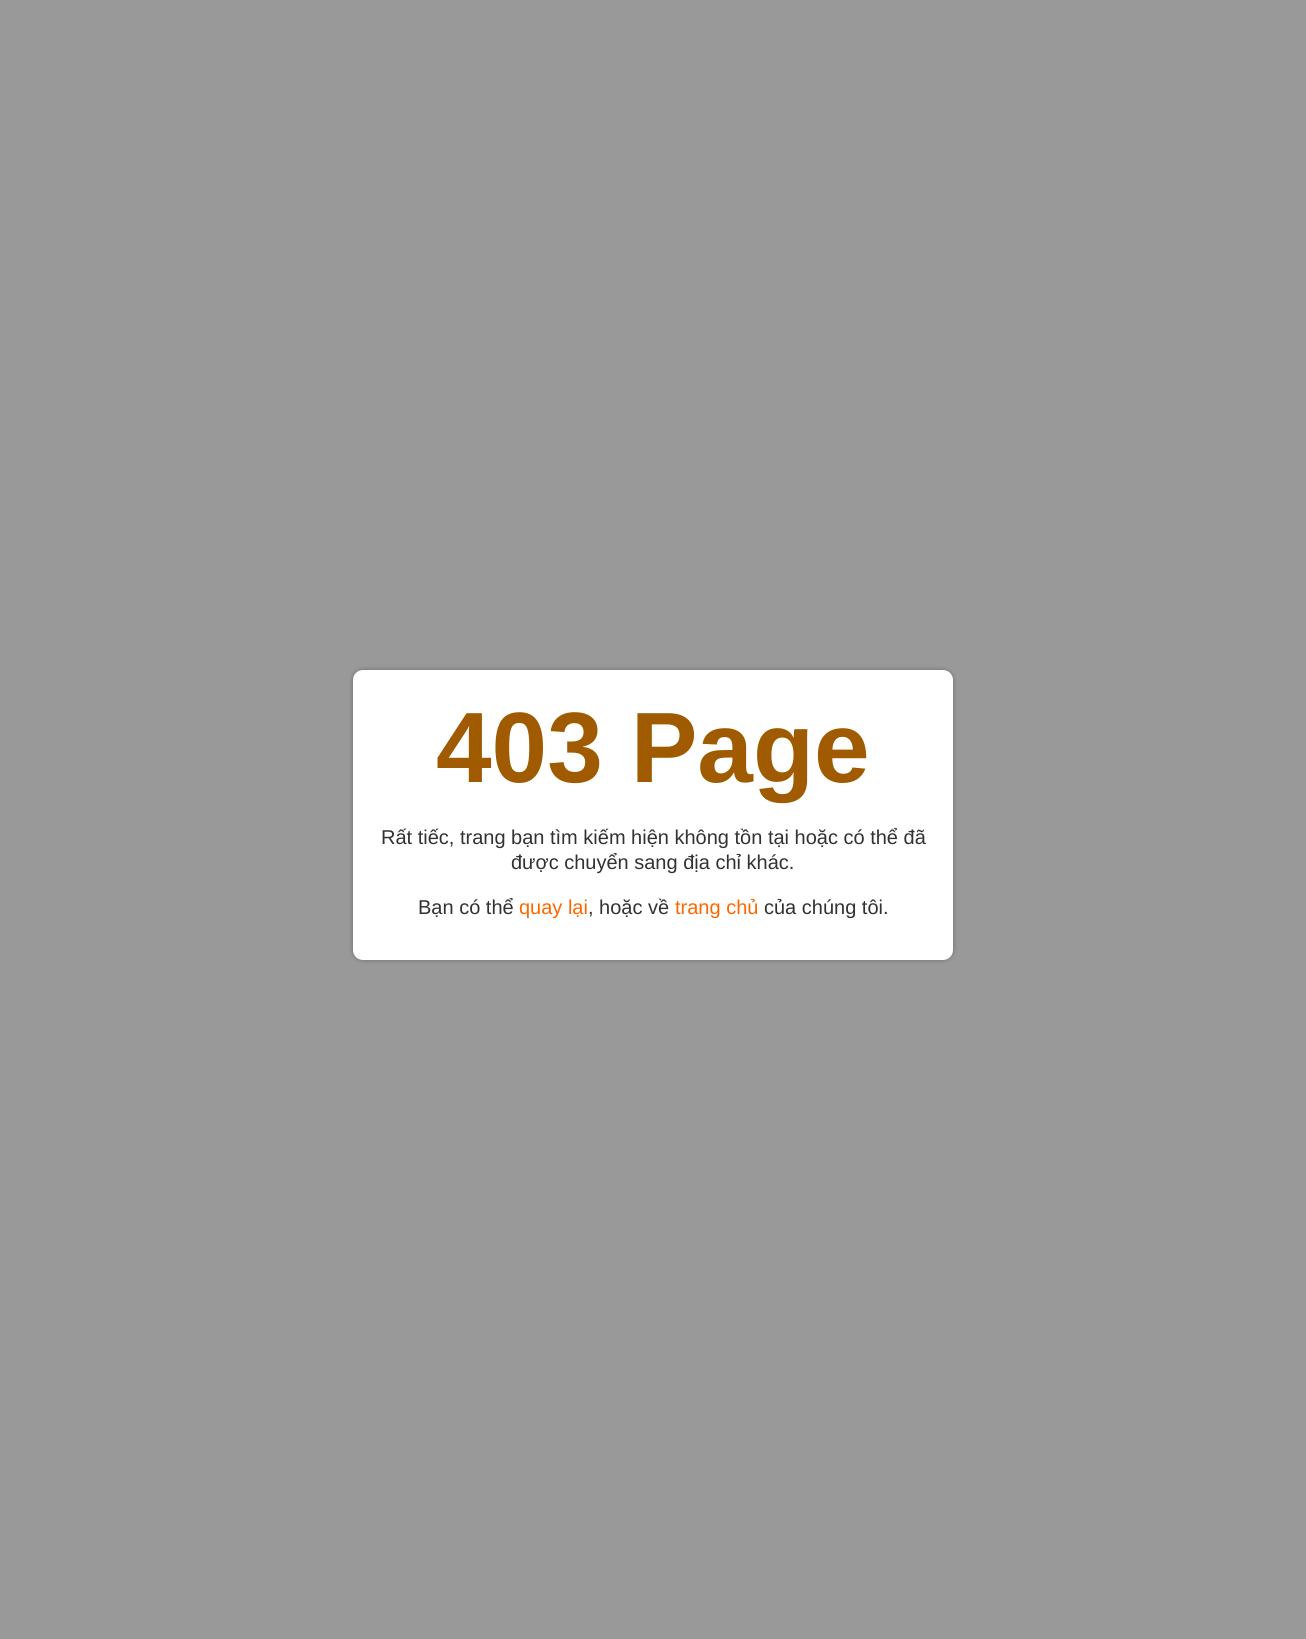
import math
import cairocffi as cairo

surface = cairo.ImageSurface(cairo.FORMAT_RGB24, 1306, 1639)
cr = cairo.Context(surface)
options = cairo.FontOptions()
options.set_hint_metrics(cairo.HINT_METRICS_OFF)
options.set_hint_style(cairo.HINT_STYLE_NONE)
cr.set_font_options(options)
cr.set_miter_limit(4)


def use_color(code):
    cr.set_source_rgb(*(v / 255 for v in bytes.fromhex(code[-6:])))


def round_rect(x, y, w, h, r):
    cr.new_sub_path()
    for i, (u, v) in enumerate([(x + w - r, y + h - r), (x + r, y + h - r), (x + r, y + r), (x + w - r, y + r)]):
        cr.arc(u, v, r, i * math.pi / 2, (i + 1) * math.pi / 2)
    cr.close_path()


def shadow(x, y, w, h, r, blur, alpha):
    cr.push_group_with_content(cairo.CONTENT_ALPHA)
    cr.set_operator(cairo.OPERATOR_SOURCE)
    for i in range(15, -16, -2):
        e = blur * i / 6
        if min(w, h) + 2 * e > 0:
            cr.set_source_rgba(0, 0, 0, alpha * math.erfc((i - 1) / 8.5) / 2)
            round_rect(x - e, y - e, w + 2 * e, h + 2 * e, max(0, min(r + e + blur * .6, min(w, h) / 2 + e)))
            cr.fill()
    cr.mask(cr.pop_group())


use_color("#999999")
cr.paint()
use_color("#000000")
shadow(353, 670, 600, 290, 10, 2.5, 0.3)
use_color("#ffffff")
round_rect(353, 670, 600, 290, 10)
cr.fill()
cr.select_font_face("Liberation Sans", cairo.FONT_SLANT_NORMAL, cairo.FONT_WEIGHT_BOLD)
cr.set_font_size(100)
use_color("#a05a00")
cr.move_to(436, 782)
cr.show_text("403 Page")
cr.select_font_face("Liberation Sans")
cr.set_font_size(20)
use_color("#323232")
cr.move_to(381, 844)
cr.show_text("Rất tiếc, trang bạn tìm kiếm hiện không tồn tại hoặc có thể đã")
cr.move_to(511, 869)
cr.show_text("được chuyển sang địa chỉ khác.")
cr.move_to(418, 914)
cr.show_text("Bạn có thể")
use_color("#ff6600")
cr.move_to(519, 914)
cr.show_text("quay lại")
use_color("#323232")
cr.move_to(588, 914)
cr.show_text(", hoặc về")
use_color("#ff6600")
cr.move_to(675, 914)
cr.show_text("trang chủ")
use_color("#323232")
cr.move_to(764, 914)
cr.show_text("của chúng tôi.")
surface.write_to_png("result.png")
